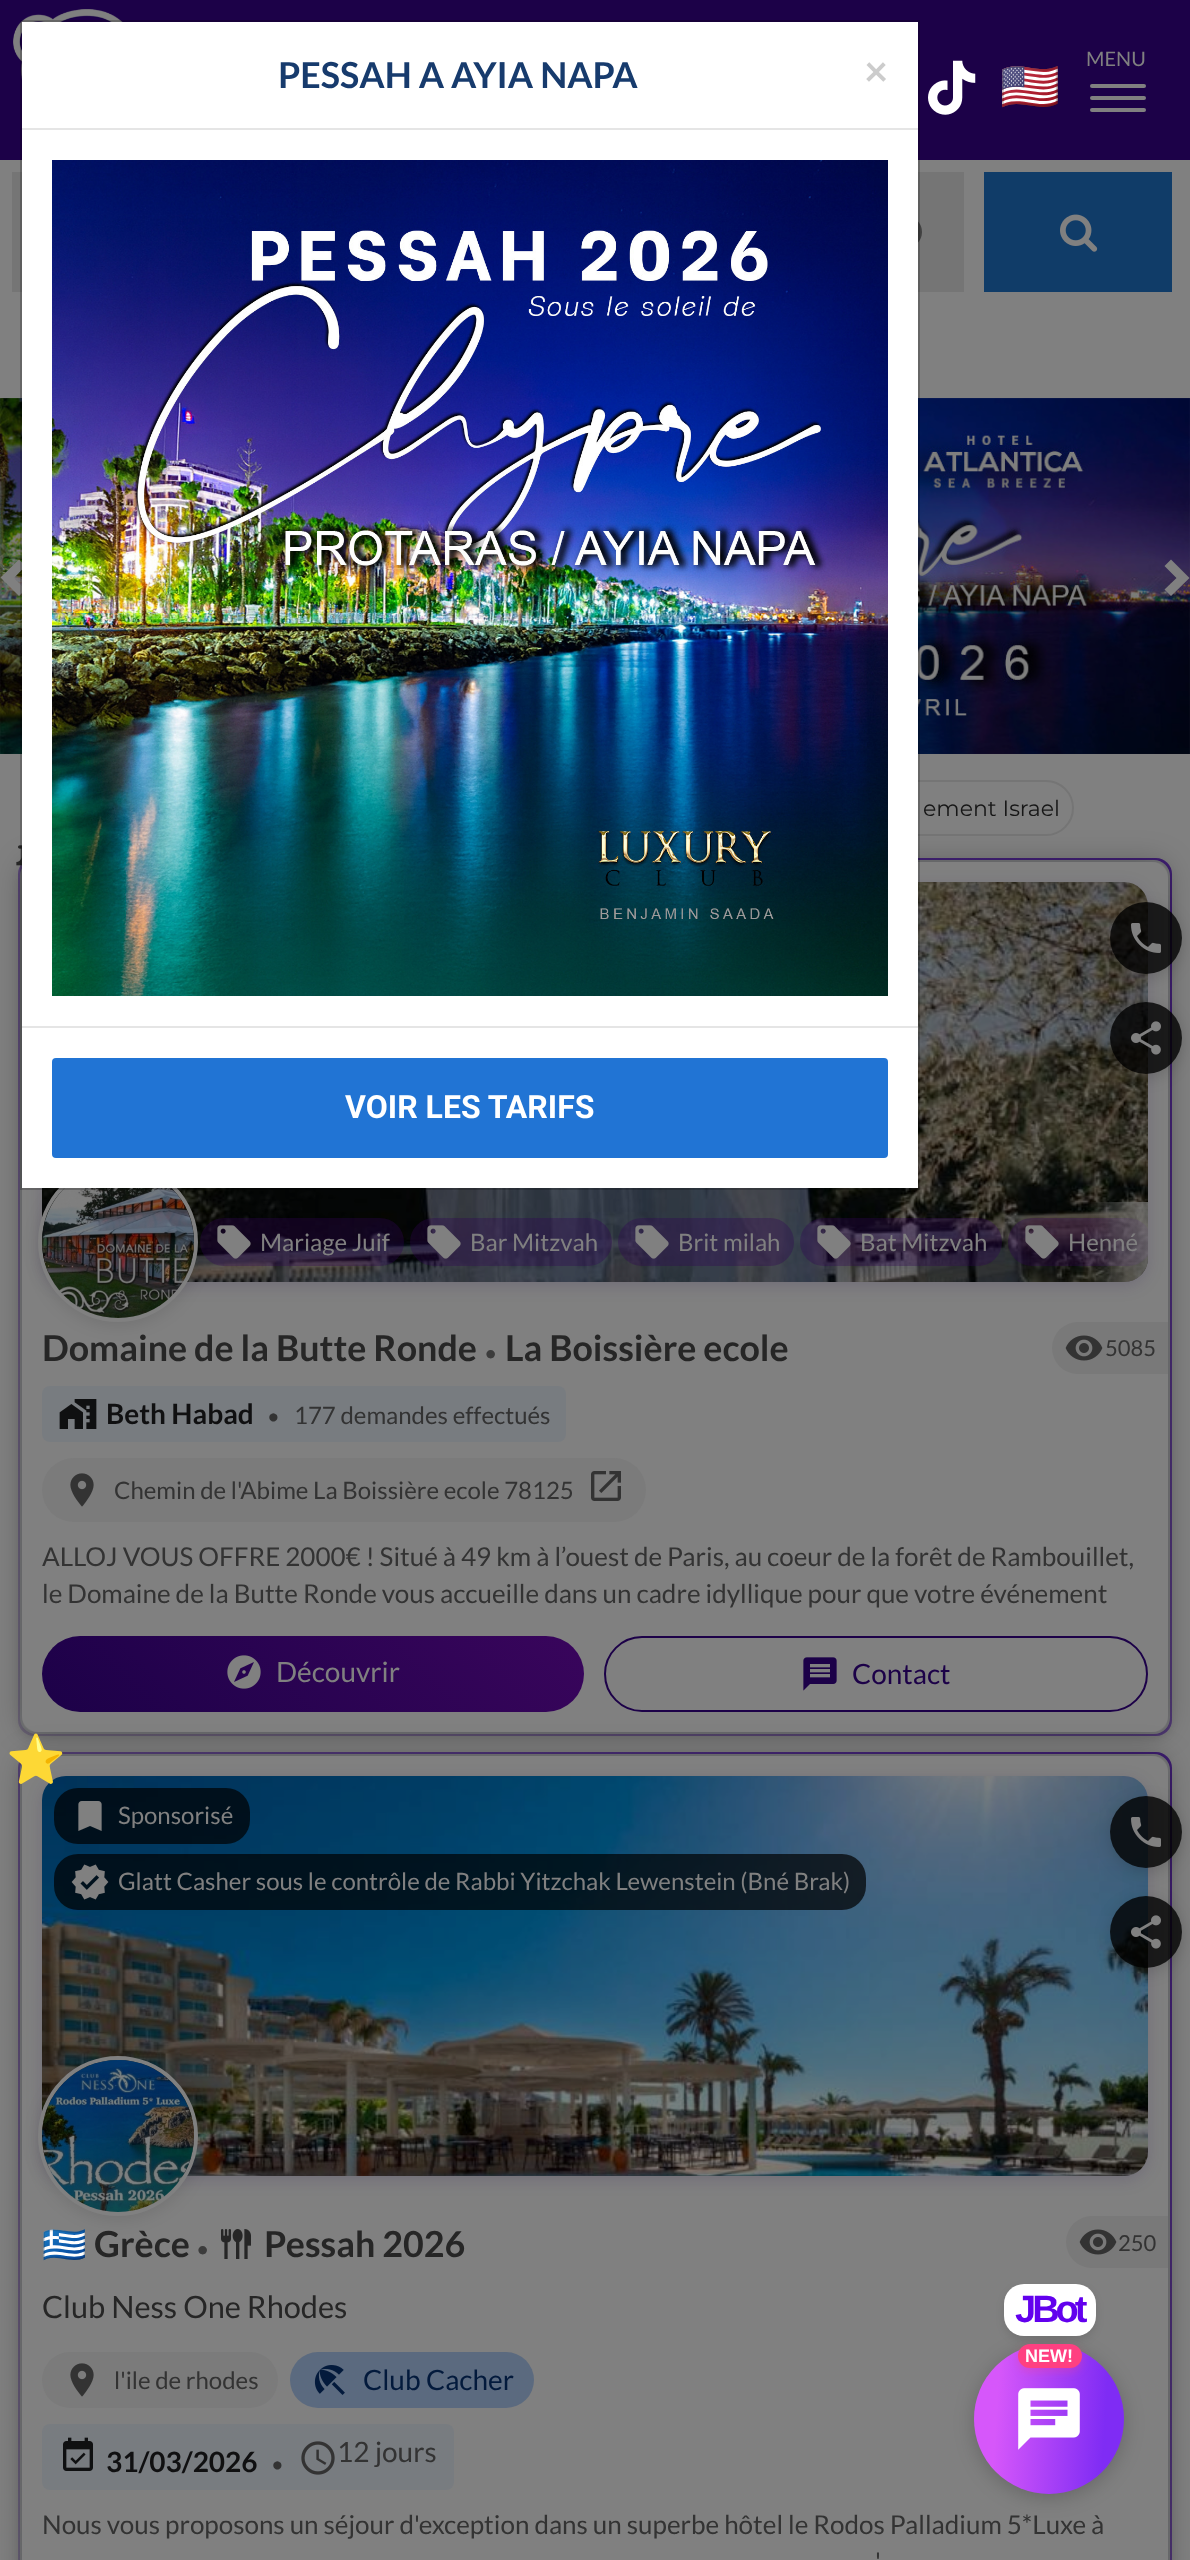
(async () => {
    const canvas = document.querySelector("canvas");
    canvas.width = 1190;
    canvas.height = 2560;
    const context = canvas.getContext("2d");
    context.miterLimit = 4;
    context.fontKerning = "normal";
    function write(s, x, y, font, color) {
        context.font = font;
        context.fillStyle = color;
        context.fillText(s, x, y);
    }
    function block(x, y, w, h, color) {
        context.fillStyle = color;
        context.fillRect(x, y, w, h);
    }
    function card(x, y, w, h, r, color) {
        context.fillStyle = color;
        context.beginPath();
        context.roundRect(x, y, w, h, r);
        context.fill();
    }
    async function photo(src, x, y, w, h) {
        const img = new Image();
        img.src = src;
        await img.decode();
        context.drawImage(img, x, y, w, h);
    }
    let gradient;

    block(0, 0, 1190, 2560, "rgb(128, 128, 128)");
    block(0, 0, 1190, 160, "rgb(28, 1, 72)");
    await photo("media/3.png", 13, 9, 110, 71);
    block(12, 172, 952, 120, "rgb(117, 117, 117)");
    await photo("media/6.png", 0, 398, 1190, 356);
    context.fillStyle = "rgb(128, 128, 128)";
    context.beginPath();
    context.moveTo(25.5, 566);
    context.lineTo(14, 578);
    context.lineTo(25.5, 589.5);
    context.lineTo(19, 596);
    context.lineTo(0.5, 577.5);
    context.lineTo(19, 559.5);
    context.closePath();
    context.fill();
    context.beginPath();
    context.roundRect(763, 781, 310, 54, 27);
    context.strokeStyle = "rgb(117, 117, 117)";
    context.lineWidth = 2;
    context.stroke();
    gradient = context.createLinearGradient(953, 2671, 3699, -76);
    gradient.addColorStop(0, "rgb(111, 104, 122)");
    gradient.addColorStop(0.33, "rgb(68, 35, 120)");
    gradient.addColorStop(0.67, "rgb(28, 1, 72)");
    gradient.addColorStop(1, "rgb(128, 128, 128)");
    context.fillStyle = gradient;
    context.beginPath();
    context.roundRect(18, 858, 1154, 878, 16);
    context.fill();
    context.fillStyle = "rgba(0, 0, 0, 0.1)";
    context.filter = "blur(4px)";
    context.beginPath();
    context.roundRect(20, 864, 1150, 874, 16);
    context.fill();
    context.filter = "none";
    context.fillStyle = "rgb(128, 128, 128)";
    context.beginPath();
    context.roundRect(21, 861, 1148, 872, 15);
    context.fill();
    context.strokeStyle = "rgb(117, 118, 120)";
    context.stroke();
    gradient = context.createLinearGradient(934, 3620, 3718, 836);
    gradient.addColorStop(0, "rgb(111, 104, 122)");
    gradient.addColorStop(0.33, "rgb(68, 35, 120)");
    gradient.addColorStop(0.67, "rgb(28, 1, 72)");
    gradient.addColorStop(1, "rgb(128, 128, 128)");
    context.fillStyle = gradient;
    context.beginPath();
    context.roundRect(18, 1752, 1154, 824, 16);
    context.fill();
    context.fillStyle = "rgba(0, 0, 0, 0.25)";
    context.filter = "blur(15px)";
    context.beginPath();
    context.roundRect(22, 862, 1146, 870, 16);
    context.fill();
    context.filter = "none";
    card(22, 862, 1146, 870, 16, "rgb(128, 128, 128)");
    context.fillStyle = "rgba(28, 1, 72, 0.15)";
    context.filter = "blur(8px)";
    context.beginPath();
    context.roundRect(42, 886, 1106, 400, 24);
    context.fill();
    context.filter = "none";
    await photo("media/11.png", 42, 882, 1106, 400);
    context.fillStyle = "rgba(0, 0, 0, 0.1)";
    context.filter = "blur(8px)";
    context.beginPath();
    context.roundRect(38, 1166, 160, 160, 80);
    context.fill();
    context.filter = "none";
    context.beginPath();
    context.arc(118, 1242, 78, 0, Math.PI * 2);
    context.strokeStyle = "rgb(128, 128, 128)";
    context.lineWidth = 4;
    context.stroke();
    block(22, 22, 896, 1166, "rgb(255, 255, 255)");
    await photo("media/4.png", 918, 221, 4, 22);
    await photo("media/7.png", 16, 845, 6, 21);
    await photo("media/10.png", 42, 1188, 152, 130);
    context.strokeStyle = "rgba(0, 0, 0, 0.2)";
    context.lineWidth = 2;
    context.strokeRect(21, 21, 898, 1168);
    block(22, 128, 896, 2, "rgb(229, 229, 229)");
    write("PESSAH A AYIA NAPA", 278, 88, "bold 35.8px Lato", "rgb(23, 59, 109)");
    write("×", 864, 86, "bold 42px Lato", "rgb(204, 204, 204)");
    await photo("media/1.png", 52, 160, 836, 836);
    block(22, 1026, 896, 2, "rgb(229, 229, 229)");
    card(52, 1058, 836, 100, 4, "rgb(33, 116, 212)");
    write("VOIR LES TARIFS", 345, 1118, "bold 32px Roboto", "rgb(255, 255, 255)");
    await photo("media/2.png", 928, 60, 48, 55);
    write("🇺🇸", 1000, 103, "48px Noto Color Emoji", "rgb(255, 255, 255)");
    write("MENU", 1086, 66, "20px Lato", "rgb(128, 128, 128)");
    card(1090, 84, 56, 4, 2, "rgb(128, 128, 128)");
    card(1090, 96, 56, 4, 2, "rgb(128, 128, 128)");
    card(1090, 108, 56, 4, 2, "rgb(128, 128, 128)");
    block(984, 172, 188, 120, "rgb(16, 60, 104)");
    await photo("media/5.png", 1060, 214, 38, 38);
    context.fillStyle = "rgb(128, 128, 128)";
    context.beginPath();
    context.moveTo(1189.5, 578);
    context.lineTo(1171, 596);
    context.lineTo(1164.5, 589.5);
    context.lineTo(1176.5, 578);
    context.lineTo(1164.5, 566);
    context.lineTo(1171, 559.5);
    context.closePath();
    context.fill();
    write("ement Israel", 923, 816, "22px Montserrat", "rgb(22, 22, 22)");
    context.save();
    context.beginPath();
    context.moveTo(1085, 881);
    context.lineTo(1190, 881);
    context.lineTo(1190, 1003);
    context.lineTo(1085, 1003);
    context.closePath();
    context.moveTo(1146, 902);
    context.bezierCurveTo(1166, 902, 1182, 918, 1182, 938);
    context.bezierCurveTo(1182, 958, 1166, 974, 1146, 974);
    context.bezierCurveTo(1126, 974, 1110, 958, 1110, 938);
    context.bezierCurveTo(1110, 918, 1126, 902, 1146, 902);
    context.closePath();
    context.clip("evenodd");
    context.fillStyle = "rgba(0, 0, 0, 0.15)";
    context.filter = "blur(8px)";
    context.beginPath();
    context.roundRect(1110, 906, 72, 72, 36);
    context.fill();
    context.filter = "none";
    context.restore();
    context.fillStyle = "rgba(0, 0, 0, 0.8)";
    context.beginPath();
    context.arc(1146, 938, 36, 0, Math.PI * 2);
    context.fill();
    await photo("media/8.png", 1131, 923, 30, 30);
    context.save();
    context.beginPath();
    context.moveTo(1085, 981);
    context.lineTo(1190, 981);
    context.lineTo(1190, 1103);
    context.lineTo(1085, 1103);
    context.closePath();
    context.moveTo(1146, 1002);
    context.bezierCurveTo(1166, 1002, 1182, 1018, 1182, 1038);
    context.bezierCurveTo(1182, 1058, 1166, 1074, 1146, 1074);
    context.bezierCurveTo(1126, 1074, 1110, 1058, 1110, 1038);
    context.bezierCurveTo(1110, 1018, 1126, 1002, 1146, 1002);
    context.closePath();
    context.clip("evenodd");
    context.fillStyle = "rgba(0, 0, 0, 0.15)";
    context.filter = "blur(8px)";
    context.beginPath();
    context.roundRect(1110, 1006, 72, 72, 36);
    context.fill();
    context.filter = "none";
    context.restore();
    context.beginPath();
    context.arc(1146, 1038, 36, 0, Math.PI * 2);
    context.fill();
    await photo("media/9.png", 1131, 1021, 30, 34);
    context.save();
    context.beginPath();
    context.roundRect(42, 882, 1106, 400, 24);
    context.clip();
    card(1008, 1218, 144, 48, 24, "rgba(48, 3, 86, 0.33)");
    context.restore();
    write("Henné", 1068, 1251, "24px Lato", "rgb(128, 128, 128)");
    gradient = context.createLinearGradient(1088, 1242, 1168, 1242);
    gradient.addColorStop(0, "rgba(128, 128, 128, 0)");
    gradient.addColorStop(1, "rgba(128, 128, 128, 0.9)");
    context.fillStyle = gradient;
    context.beginPath();
    context.roundRect(1088, 1202, 60, 80, [0, 0, 24, 0]);
    context.fill();
    card(200, 1218, 204, 48, 24, "rgba(48, 3, 86, 0.33)");
    await photo("media/12.png", 217, 1225, 34, 34);
    write("Mariage Juif", 260, 1251, "24px Lato", "rgb(128, 128, 128)");
    card(410, 1218, 202, 48, 24, "rgba(48, 3, 86, 0.33)");
    await photo("media/13.png", 427, 1225, 34, 34);
    write("Bar Mitzvah", 470, 1251, "24px Lato", "rgb(128, 128, 128)");
    card(618, 1218, 176, 48, 24, "rgba(48, 3, 86, 0.33)");
    await photo("media/14.png", 635, 1225, 34, 34);
    write("Brit milah", 678, 1251, "24px Lato", "rgb(128, 128, 128)");
    card(800, 1218, 202, 48, 24, "rgba(48, 3, 86, 0.33)");
    await photo("media/15.png", 817, 1225, 34, 34);
    write("Bat Mitzvah", 860, 1251, "24px Lato", "rgb(128, 128, 128)");
    await photo("media/16.png", 1025, 1225, 34, 34);
    write("Domaine de la Butte Ronde", 42, 1361, "bold 35.8px Lato", "rgb(38, 38, 38)");
    write("•", 484, 1361, "23px Lato", "rgb(60, 60, 60)");
    write("La Boissière ecole", 505, 1361, "bold 35.8px Lato", "rgb(38, 38, 38)");
    context.fillStyle = "rgb(121, 121, 121)";
    context.beginPath();
    context.roundRect(1052, 1322, 116, 52, [26, 0, 0, 26]);
    context.fill();
    await photo("media/17.png", 1065, 1335, 38, 26);
    write("5085", 1105, 1356, "22px Lato", "rgb(51, 51, 51)");
    card(42, 1386, 524, 56, 8, "rgb(120, 124, 128)");
    await photo("media/18.png", 59, 1399, 38, 30);
    write("Beth Habad", 106, 1424, "bold 28px Lato", "rgb(16, 16, 17)");
    write("•", 267, 1424, "22px Lato", "rgb(51, 51, 51)");
    write("177 demandes effectués", 294, 1424, "24px Lato", "rgb(51, 51, 51)");
    card(42, 1458, 604, 64, 32, "rgb(123, 123, 123)");
    await photo("media/19.png", 70, 1473, 24, 34);
    write("Chemin de l'Abime La Boissière ecole 78125", 114, 1499, "24px Lato", "rgb(51, 51, 51)");
    await photo("media/20.png", 591, 1471, 30, 30);
    write("ALLOJ VOUS OFFRE 2000€ ! Situé à 49 km à l’ouest de Paris, au coeur de la forêt de Rambouillet,", 42, 1566, "26px Lato", "rgb(51, 51, 51)");
    write("le Domaine de la Butte Ronde vous accueille dans un cadre idyllique pour que votre événement", 42, 1603, "26px Lato", "rgb(51, 51, 51)");
    gradient = context.createLinearGradient(159, 1829, 468, 1520);
    gradient.addColorStop(0, "rgb(28, 1, 72)");
    gradient.addColorStop(1, "rgb(57, 5, 92)");
    context.fillStyle = gradient;
    context.beginPath();
    context.roundRect(42, 1636, 542, 76, 38);
    context.fill();
    await photo("media/21.png", 227, 1655, 34, 34);
    write("Découvrir", 276, 1682, "28px Lato", "rgb(128, 128, 128)");
    context.beginPath();
    context.roundRect(605, 1637, 542, 74, 37);
    context.strokeStyle = "rgb(28, 1, 72)";
    context.stroke();
    await photo("media/22.png", 803, 1657, 34, 34);
    write("Contact", 852, 1684, "28px Lato", "rgb(28, 1, 72)");
    context.fillStyle = "rgba(0, 0, 0, 0.1)";
    context.filter = "blur(4px)";
    context.beginPath();
    context.roundRect(20, 1758, 1150, 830, 16);
    context.fill();
    context.filter = "none";
    context.fillStyle = "rgb(128, 128, 128)";
    context.beginPath();
    context.roundRect(21, 1755, 1148, 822, 15);
    context.fill();
    context.strokeStyle = "rgb(117, 118, 120)";
    context.stroke();
    context.fillStyle = "rgba(0, 0, 0, 0.25)";
    context.filter = "blur(15px)";
    context.beginPath();
    context.roundRect(22, 1756, 1146, 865, 16);
    context.fill();
    context.filter = "none";
    card(22, 1756, 1146, 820, 16, "rgb(128, 128, 128)");
    context.fillStyle = "rgba(28, 1, 72, 0.15)";
    context.filter = "blur(8px)";
    context.beginPath();
    context.roundRect(42, 1780, 1106, 400, 24);
    context.fill();
    context.filter = "none";
    await photo("media/23.png", 42, 1776, 1106, 400);
    write("⭐", 6, 1776, "48px Noto Color Emoji", "rgb(16, 16, 17)");
    card(54, 1788, 196, 56, 24, "rgba(0, 0, 0, 0.7)");
    await photo("media/24.png", 78, 1801, 24, 30);
    write("Sponsorisé", 118, 1824, "24px Lato", "rgb(128, 128, 128)");
    card(54, 1854, 812, 56, 24, "rgba(0, 0, 0, 0.7)");
    await photo("media/25.png", 71, 1864, 38, 36);
    write("Glatt Casher sous le contrôle de Rabbi Yitzchak Lewenstein (Bné Brak)", 118, 1890, "24px Lato", "rgb(128, 128, 128)");
    context.save();
    context.beginPath();
    context.moveTo(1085, 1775);
    context.lineTo(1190, 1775);
    context.lineTo(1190, 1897);
    context.lineTo(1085, 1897);
    context.closePath();
    context.moveTo(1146, 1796);
    context.bezierCurveTo(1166, 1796, 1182, 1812, 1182, 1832);
    context.bezierCurveTo(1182, 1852, 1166, 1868, 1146, 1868);
    context.bezierCurveTo(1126, 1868, 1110, 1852, 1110, 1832);
    context.bezierCurveTo(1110, 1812, 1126, 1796, 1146, 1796);
    context.closePath();
    context.clip("evenodd");
    context.fillStyle = "rgba(0, 0, 0, 0.15)";
    context.filter = "blur(8px)";
    context.beginPath();
    context.roundRect(1110, 1800, 72, 72, 36);
    context.fill();
    context.filter = "none";
    context.restore();
    context.fillStyle = "rgba(0, 0, 0, 0.8)";
    context.beginPath();
    context.arc(1146, 1832, 36, 0, Math.PI * 2);
    context.fill();
    await photo("media/26.png", 1131, 1817, 30, 30);
    context.save();
    context.beginPath();
    context.moveTo(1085, 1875);
    context.lineTo(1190, 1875);
    context.lineTo(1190, 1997);
    context.lineTo(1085, 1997);
    context.closePath();
    context.moveTo(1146, 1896);
    context.bezierCurveTo(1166, 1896, 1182, 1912, 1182, 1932);
    context.bezierCurveTo(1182, 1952, 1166, 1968, 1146, 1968);
    context.bezierCurveTo(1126, 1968, 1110, 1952, 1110, 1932);
    context.bezierCurveTo(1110, 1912, 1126, 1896, 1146, 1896);
    context.closePath();
    context.clip("evenodd");
    context.fillStyle = "rgba(0, 0, 0, 0.15)";
    context.filter = "blur(8px)";
    context.beginPath();
    context.roundRect(1110, 1900, 72, 72, 36);
    context.fill();
    context.filter = "none";
    context.restore();
    context.beginPath();
    context.arc(1146, 1932, 36, 0, Math.PI * 2);
    context.fill();
    await photo("media/27.png", 1131, 1915, 30, 34);
    context.fillStyle = "rgba(0, 0, 0, 0.1)";
    context.filter = "blur(8px)";
    context.beginPath();
    context.roundRect(38, 2060, 160, 160, 80);
    context.fill();
    context.filter = "none";
    context.beginPath();
    context.arc(118, 2136, 78, 0, Math.PI * 2);
    context.strokeStyle = "rgb(128, 128, 128)";
    context.lineWidth = 4;
    context.stroke();
    await photo("media/28.png", 42, 2060, 152, 152);
    write("🇬🇷", 42, 2257, "bold 35.8px Noto Color Emoji", "rgb(38, 38, 38)");
    write("Grèce", 94, 2257, "bold 35.8px Lato", "rgb(38, 38, 38)");
    write("•", 196, 2257, "23px Lato", "rgb(60, 60, 60)");
    await photo("media/29.png", 221, 2229, 30, 30);
    write("Pessah 2026", 264, 2257, "bold 35.8px Lato", "rgb(38, 38, 38)");
    context.fillStyle = "rgb(121, 121, 121)";
    context.beginPath();
    context.roundRect(1066, 2216, 102, 52, [26, 0, 0, 26]);
    context.fill();
    await photo("media/17.png", 1079, 2229, 38, 26);
    write("250", 1118, 2251, "22px Lato", "rgb(51, 51, 51)");
    write("Club Ness One Rhodes", 42, 2318, "30.75px Lato", "rgb(38, 38, 38)");
    card(42, 2352, 236, 56, 28, "rgb(123, 123, 123)");
    await photo("media/19.png", 70, 2363, 24, 34);
    write("l'ile de rhodes", 114, 2389, "24px Lato", "rgb(51, 51, 51)");
    card(290, 2352, 244, 56, 28, "rgb(91, 106, 127)");
    await photo("media/30.png", 314, 2365, 31, 30);
    write("Club Cacher", 363, 2390, "28px Lato", "rgb(3, 26, 60)");
    card(42, 2424, 412, 66, 8, "rgb(120, 124, 128)");
    await photo("media/31.png", 63, 2437, 30, 34);
    write("31/03/2026", 106, 2472, "bold 28px Lato", "rgb(16, 16, 17)");
    write("•", 271, 2472, "22px Lato", "rgb(51, 51, 51)");
    await photo("media/32.png", 301, 2441, 34, 34);
    write("12 jours", 337, 2462, "28px Lato", "rgb(51, 51, 51)");
    write("Nous vous proposons un séjour d'exception dans un superbe hôtel le Rodos Palladium 5*Luxe à", 42, 2534, "26px Lato", "rgb(51, 51, 51)");
    write("'", 875, 2571, "26px Lato", "rgb(51, 51, 51)");
    context.fillStyle = "rgba(0, 0, 0, 0.2)";
    context.filter = "blur(10px)";
    context.beginPath();
    context.roundRect(974, 2348, 150, 150, 75);
    context.fill();
    context.filter = "none";
    gradient = context.createLinearGradient(969, 2414, 1129, 2424);
    gradient.addColorStop(0.17, "rgb(214, 87, 250)");
    gradient.addColorStop(0.85, "rgb(127, 44, 244)");
    context.fillStyle = gradient;
    context.beginPath();
    context.arc(1049, 2419, 75, 0, Math.PI * 2);
    context.fill();
    context.fillStyle = "rgba(0, 0, 0, 0.1)";
    context.filter = "blur(4px)";
    context.beginPath();
    context.roundRect(1004, 2288, 92, 52, 20);
    context.fill();
    context.filter = "none";
    card(1004, 2284, 92, 52, 20, "rgb(255, 255, 255)");
    context.letterSpacing = "-4px";
    write("JBot", 1015, 2322, "bold 38px Liberation Sans", "rgb(98, 0, 238)");
    context.fillStyle = "rgba(255, 64, 129, 0.3)";
    context.filter = "blur(4px)";
    context.beginPath();
    context.roundRect(1018, 2348, 64, 24, 12);
    context.fill();
    context.filter = "none";
    card(1018, 2344, 64, 24, 12, "rgb(255, 64, 129)");
    context.letterSpacing = "0px";
    write("NEW!", 1025, 2362, "bold 18px Liberation Sans", "rgb(255, 255, 255)");
    await photo("media/33.png", 1018, 2388, 62, 62);
})();
